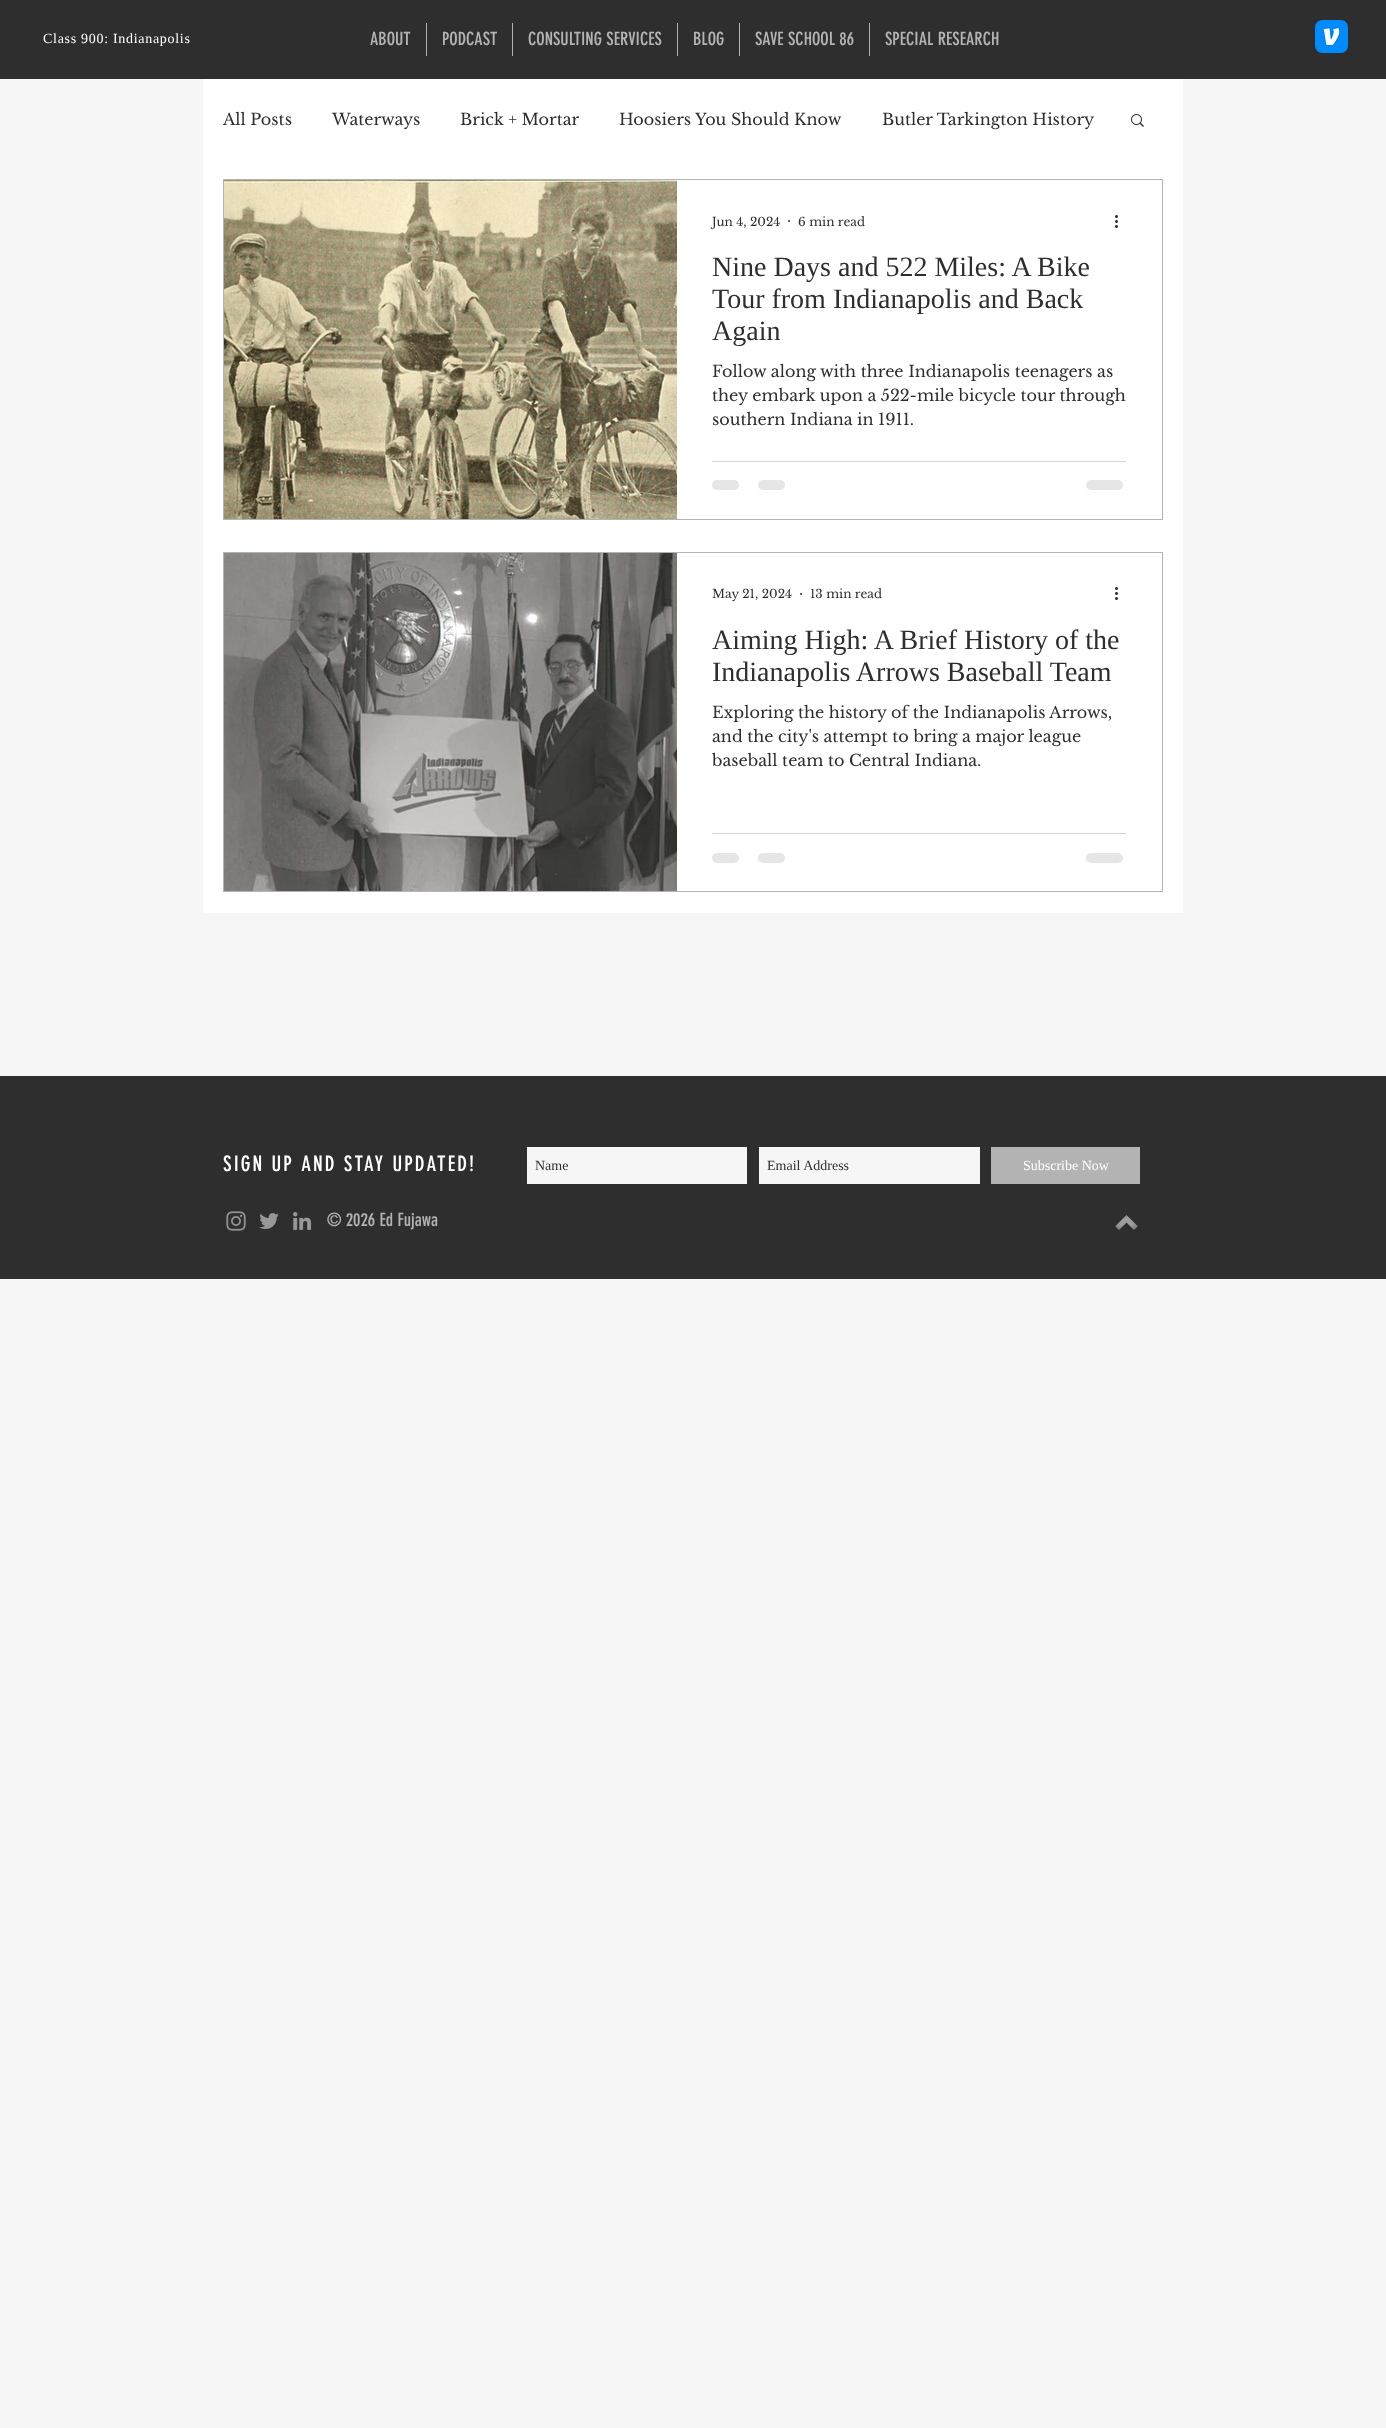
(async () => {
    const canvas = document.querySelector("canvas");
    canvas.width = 1386;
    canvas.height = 2428;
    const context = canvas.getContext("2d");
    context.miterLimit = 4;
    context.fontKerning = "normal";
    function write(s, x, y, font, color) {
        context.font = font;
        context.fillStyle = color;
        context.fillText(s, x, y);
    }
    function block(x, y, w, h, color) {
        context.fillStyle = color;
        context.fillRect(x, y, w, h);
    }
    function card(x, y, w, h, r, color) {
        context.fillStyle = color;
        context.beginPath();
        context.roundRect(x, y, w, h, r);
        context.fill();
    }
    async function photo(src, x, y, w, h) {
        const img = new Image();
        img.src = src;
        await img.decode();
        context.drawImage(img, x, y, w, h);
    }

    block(0, 0, 1386, 2428, "rgb(246, 246, 246)");
    block(0, 0, 1386, 79, "rgb(47, 46, 46)");
    context.letterSpacing = "0.7px";
    write("Class 900: Indianapolis", 43, 43, "14px Liberation Serif", "rgb(255, 255, 255)");
    context.letterSpacing = "0px";
    write("ABOUT", 370, 45, "18px 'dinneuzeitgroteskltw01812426'", "rgb(179, 179, 179)");
    block(426, 23, 1, 33, "rgb(179, 179, 179)");
    write("PODCAST", 442, 45, "18px 'dinneuzeitgroteskltw01812426'", "rgb(179, 179, 179)");
    block(512, 23, 1, 33, "rgb(179, 179, 179)");
    write("CONSULTING SERVICES", 528, 45, "18px 'dinneuzeitgroteskltw01812426'", "rgb(179, 179, 179)");
    block(677, 23, 1, 33, "rgb(179, 179, 179)");
    write("BLOG", 693, 45, "18px 'dinneuzeitgroteskltw01812426'", "rgb(179, 179, 179)");
    block(739, 23, 1, 33, "rgb(179, 179, 179)");
    write("SAVE SCHOOL 86", 755, 45, "18px 'dinneuzeitgroteskltw01812426'", "rgb(179, 179, 179)");
    block(869, 23, 1, 33, "rgb(179, 179, 179)");
    write("SPECIAL RESEARCH", 885, 45, "18px 'dinneuzeitgroteskltw01812426'", "rgb(179, 179, 179)");
    await photo("media/1.png", 1315, 20, 33, 33);
    block(203, 79, 980, 834, "rgb(255, 255, 255)");
    write("All Posts", 223, 125, "16px Libre Baskerville", "rgb(47, 46, 46)");
    write("Waterways", 332, 125, "16px Libre Baskerville", "rgb(47, 46, 46)");
    write("Brick + Mortar", 460, 125, "16px Libre Baskerville", "rgb(47, 46, 46)");
    write("Hoosiers You Should Know", 619, 125, "16px Libre Baskerville", "rgb(47, 46, 46)");
    write("Butler Tarkington History", 882, 125, "16px Libre Baskerville", "rgb(47, 46, 46)");
    await photo("media/2.png", 1131, 114, 13, 13);
    context.strokeStyle = "rgb(179, 179, 179)";
    context.strokeRect(223.5, 179.5, 939, 340);
    await photo("media/3.png", 224, 180, 453, 339);
    write("Jun 4, 2024", 712, 226, "12px Libre Baskerville", "rgb(47, 46, 46)");
    context.beginPath();
    context.arc(789, 221, 1, 0, Math.PI * 2);
    context.fill();
    write("6 min read", 798, 226, "12px Libre Baskerville", "rgb(47, 46, 46)");
    await photo("media/4.png", 1115, 215, 3, 13);
    write("Nine Days and 522 Miles: A Bike", 712, 276, "28px Liberation Serif", "rgb(47, 46, 46)");
    write("Tour from Indianapolis and Back", 712, 308, "28px Liberation Serif", "rgb(47, 46, 46)");
    write("Again", 712, 340, "28px Liberation Serif", "rgb(47, 46, 46)");
    write("Follow along with three Indianapolis teenagers as", 712, 377, "16px Libre Baskerville", "rgb(47, 46, 46)");
    write("they embark upon a 522-mile bicycle tour through", 712, 401, "16px Libre Baskerville", "rgb(47, 46, 46)");
    write("southern Indiana in 1911.", 712, 425, "16px Libre Baskerville", "rgb(47, 46, 46)");
    block(712, 461, 414, 1, "rgb(213, 213, 213)");
    card(712, 480, 27, 10, 5, "rgb(230, 230, 230)");
    card(758, 480, 27, 10, 5, "rgb(230, 230, 230)");
    card(1086, 480, 37, 10, 5, "rgb(230, 230, 230)");
    context.strokeRect(223.5, 552.5, 939, 339);
    await photo("media/5.png", 224, 553, 453, 338);
    write("May 21, 2024", 712, 598, "12px Libre Baskerville", "rgb(47, 46, 46)");
    context.beginPath();
    context.arc(801, 594, 1, 0, Math.PI * 2);
    context.fill();
    write("13 min read", 810, 598, "12px Libre Baskerville", "rgb(47, 46, 46)");
    await photo("media/4.png", 1115, 587, 3, 13);
    write("Aiming High: A Brief History of the", 712, 649, "28px Liberation Serif", "rgb(47, 46, 46)");
    write("Indianapolis Arrows Baseball Team", 712, 681, "28px Liberation Serif", "rgb(47, 46, 46)");
    write("Exploring the history of the Indianapolis Arrows,", 712, 718, "16px Libre Baskerville", "rgb(47, 46, 46)");
    write("and the city's attempt to bring a major league", 712, 742, "16px Libre Baskerville", "rgb(47, 46, 46)");
    write("baseball team to Central Indiana.", 712, 766, "16px Libre Baskerville", "rgb(47, 46, 46)");
    block(712, 833, 414, 1, "rgb(213, 213, 213)");
    card(712, 853, 27, 10, 5, "rgb(230, 230, 230)");
    card(758, 853, 27, 10, 5, "rgb(230, 230, 230)");
    card(1086, 853, 37, 10, 5, "rgb(230, 230, 230)");
    block(0, 1076, 1386, 203, "rgb(47, 46, 46)");
    context.letterSpacing = "2.1px";
    write("SIGN UP AND STAY UPDATED!", 223, 1171, "21px 'dinneuzeitgroteskltw01812426'", "rgb(255, 255, 255)");
    block(527, 1147, 220, 37, "rgb(246, 246, 246)");
    context.letterSpacing = "0px";
    write("Name", 535, 1170, "14px Liberation Serif", "rgb(47, 46, 46)");
    block(759, 1147, 221, 37, "rgb(246, 246, 246)");
    write("Email Address", 767, 1170, "14px Liberation Serif", "rgb(47, 46, 46)");
    block(991, 1147, 149, 37, "rgb(179, 179, 179)");
    write("Subscribe Now", 1023, 1170, "14px Liberation Serif", "rgb(255, 255, 255)");
    await photo("media/6.png", 226, 1211, 20, 20);
    await photo("media/7.png", 259, 1213, 20, 17);
    await photo("media/8.png", 292, 1212, 20, 19);
    write("© 2026 Ed Fujawa", 327, 1226, "18px 'dinneuzeitgroteskltw01812426'", "rgb(179, 179, 179)");
    await photo("media/9.png", 1115, 1215, 23, 15);
})();
